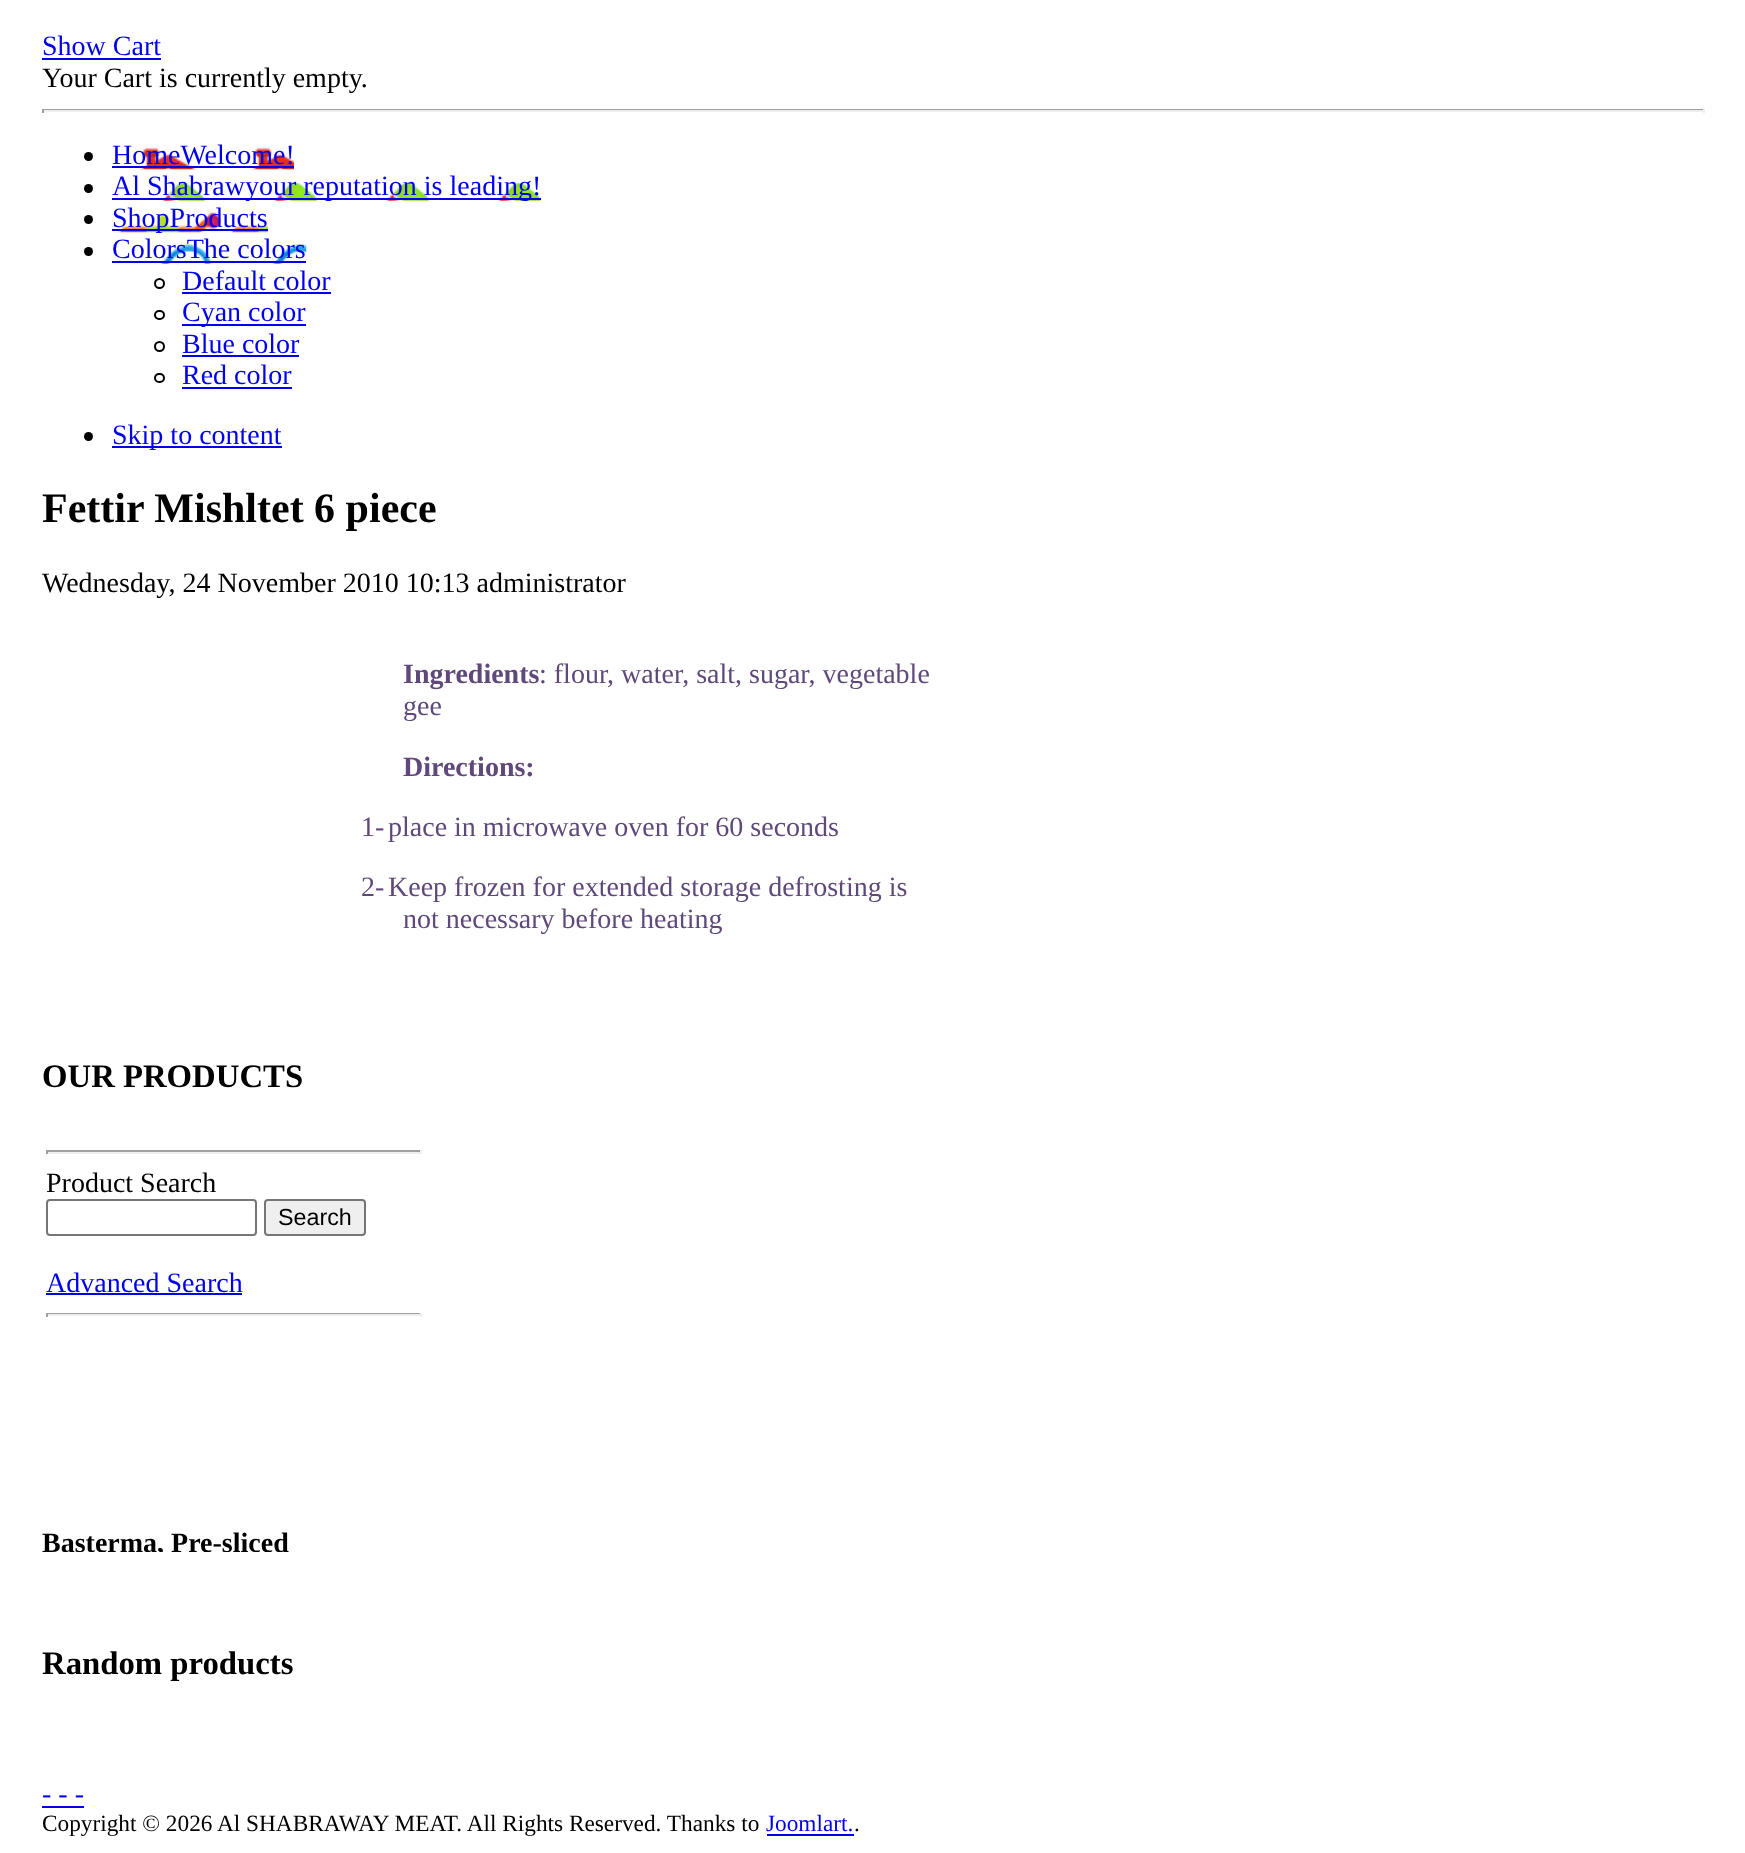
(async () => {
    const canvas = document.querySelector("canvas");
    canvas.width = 1745;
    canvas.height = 1853;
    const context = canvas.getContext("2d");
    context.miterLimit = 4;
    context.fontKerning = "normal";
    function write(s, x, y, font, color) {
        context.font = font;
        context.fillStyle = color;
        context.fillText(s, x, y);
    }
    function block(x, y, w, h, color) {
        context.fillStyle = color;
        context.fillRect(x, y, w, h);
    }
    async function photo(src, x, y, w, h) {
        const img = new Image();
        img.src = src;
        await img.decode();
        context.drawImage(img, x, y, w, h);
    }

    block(0, 0, 1745, 1853, "rgb(255, 255, 255)");
    write("Show Cart", 42, 55, "28px Liberation Serif", "rgb(0, 0, 238)");
    block(42, 58, 119, 2, "rgb(0, 0, 238)");
    write("Your Cart is currently empty.", 42, 87, "28px Liberation Serif", "rgb(0, 0, 0)");
    block(42, 109, 1663, 1, "rgb(159, 159, 159)");
    block(1703, 109, 2, 4, "rgb(238, 238, 238)");
    block(42, 110, 1663, 2, "rgb(238, 238, 238)");
    block(42, 109, 2, 4, "rgb(159, 159, 159)");
    await photo("media/1.png", 138, 147, 156, 23);
    write("HomeWelcome!", 112, 164, "28px Liberation Serif", "rgb(0, 0, 238)");
    block(112, 166, 182, 2, "rgb(0, 0, 238)");
    context.fillStyle = "rgb(0, 0, 0)";
    context.beginPath();
    context.arc(88.5, 156.5, 4.5, 0, Math.PI * 2);
    context.fill();
    await photo("media/2.png", 162, 182, 379, 19);
    block(112, 198, 429, 2, "rgb(0, 0, 238)");
    write("Al Shabrawyour reputation is leading!", 112, 195, "28px Liberation Serif", "rgb(0, 0, 238)");
    context.fillStyle = "rgb(0, 0, 0)";
    context.beginPath();
    context.arc(88.5, 188.5, 4.5, 0, Math.PI * 2);
    context.fill();
    await photo("media/3.png", 118, 212, 150, 21);
    block(112, 229, 156, 2, "rgb(0, 0, 238)");
    write("ShopProducts", 112, 227, "28px Liberation Serif", "rgb(0, 0, 238)");
    context.fillStyle = "rgb(0, 0, 0)";
    context.beginPath();
    context.arc(88.5, 219.5, 4.5, 0, Math.PI * 2);
    context.fill();
    await photo("media/4.png", 160, 244, 147, 20);
    write("ColorsThe colors", 112, 258, "28px Liberation Serif", "rgb(0, 0, 238)");
    block(112, 261, 194, 2, "rgb(0, 0, 238)");
    context.fillStyle = "rgb(0, 0, 0)";
    context.beginPath();
    context.arc(88.5, 251.5, 4.5, 0, Math.PI * 2);
    context.fill();
    context.beginPath();
    context.arc(159.5, 283.5, 4.5, 0, Math.PI * 2);
    context.strokeStyle = "rgb(0, 0, 0)";
    context.lineWidth = 2;
    context.stroke();
    write("Default color", 182, 290, "28px Liberation Serif", "rgb(0, 0, 238)");
    block(182, 292, 149, 2, "rgb(0, 0, 238)");
    context.beginPath();
    context.roundRect(155, 311, 9, 8, 4);
    context.stroke();
    block(182, 324, 124, 2, "rgb(0, 0, 238)");
    write("Cyan color", 182, 321, "28px Liberation Serif", "rgb(0, 0, 238)");
    context.beginPath();
    context.arc(159.5, 346.5, 4.5, 0, Math.PI * 2);
    context.stroke();
    write("Blue color", 182, 353, "28px Liberation Serif", "rgb(0, 0, 238)");
    block(182, 355, 117, 2, "rgb(0, 0, 238)");
    context.beginPath();
    context.roundRect(155, 374, 9, 8, 4);
    context.stroke();
    write("Red color", 182, 384, "28px Liberation Serif", "rgb(0, 0, 238)");
    block(182, 387, 110, 2, "rgb(0, 0, 238)");
    context.fillStyle = "rgb(0, 0, 0)";
    context.beginPath();
    context.arc(88.5, 436.5, 4.5, 0, Math.PI * 2);
    context.fill();
    block(112, 446, 170, 2, "rgb(0, 0, 238)");
    write("Skip to content", 112, 444, "28px Liberation Serif", "rgb(0, 0, 238)");
    write("Fettir Mishltet 6 piece", 42, 522, "bold 42px Liberation Serif", "rgb(0, 0, 0)");
    write("Wednesday, 24 November 2010 10:13 administrator", 42, 592, "28px Liberation Serif", "rgb(0, 0, 0)");
    write("Ingredients", 403, 683, "bold 28px Liberation Serif", "rgb(95, 73, 122)");
    write(": flour, water, salt, sugar, vegetable", 539, 683, "28px Liberation Serif", "rgb(95, 73, 122)");
    write("gee", 403, 715, "28px Liberation Serif", "rgb(95, 73, 122)");
    write("Directions:", 403, 776, "bold 28px Liberation Serif", "rgb(95, 73, 122)");
    write("1-", 361, 836, "28px Liberation Serif", "rgb(95, 73, 122)");
    write("place in microwave oven for 60 seconds", 388, 836, "28px Liberation Serif", "rgb(95, 73, 122)");
    write("2-", 361, 896, "28px Liberation Serif", "rgb(95, 73, 122)");
    write("Keep frozen for extended storage defrosting is", 388, 896, "28px Liberation Serif", "rgb(95, 73, 122)");
    write("not necessary before heating", 403, 928, "28px Liberation Serif", "rgb(95, 73, 122)");
    write("OUR PRODUCTS", 42, 1087, "bold 32.75px Liberation Serif", "rgb(0, 0, 0)");
    block(46, 1150, 376, 2, "rgb(159, 159, 159)");
    block(420, 1150, 2, 4, "rgb(238, 238, 238)");
    block(46, 1152, 376, 2, "rgb(238, 238, 238)");
    block(46, 1150, 2, 4, "rgb(159, 159, 159)");
    write("Product Search", 46, 1192, "28px Liberation Serif", "rgb(0, 0, 0)");
    context.beginPath();
    context.roundRect(47, 1200, 209, 35, 3);
    context.strokeStyle = "rgb(118, 118, 118)";
    context.stroke();
    context.fillStyle = "rgb(239, 239, 239)";
    context.beginPath();
    context.roundRect(265, 1200, 100, 35, 3);
    context.fill();
    context.stroke();
    write("Search", 278, 1225, "23.3px Liberation Sans", "rgb(0, 0, 0)");
    write("Advanced Search", 46, 1292, "28px Liberation Serif", "rgb(0, 0, 238)");
    block(46, 1293, 196, 2, "rgb(0, 0, 238)");
    block(46, 1313, 376, 1, "rgb(159, 159, 159)");
    block(420, 1313, 2, 4, "rgb(238, 238, 238)");
    block(46, 1314, 376, 2, "rgb(238, 238, 238)");
    block(46, 1313, 2, 4, "rgb(159, 159, 159)");
    context.save();
    context.beginPath();
    context.rect(42, 1334, 263, 218);
    context.clip();
    write("Basterma, Pre-sliced", 42, 1552, "bold 28px Liberation Serif", "rgb(0, 0, 0)");
    context.restore();
    write("Random products", 42, 1674, "bold 32.75px Liberation Serif", "rgb(0, 0, 0)");
    write("- - -", 42, 1803, "28px Liberation Serif", "rgb(0, 0, 238)");
    block(42, 1806, 42, 2, "rgb(0, 0, 238)");
    write("Copyright © 2026 Al SHABRAWAY MEAT. All Rights Reserved. Thanks to", 42, 1831, "23.3px Liberation Serif", "rgb(0, 0, 0)");
    write("Joomlart.", 766, 1831, "23.3px Liberation Serif", "rgb(0, 0, 238)");
    write(".", 854, 1831, "23.3px Liberation Serif", "rgb(0, 0, 0)");
    block(767, 1834, 87, 2, "rgb(0, 0, 238)");
})();
